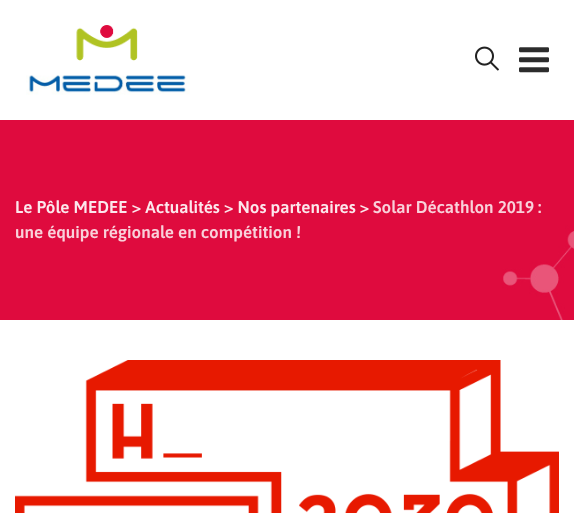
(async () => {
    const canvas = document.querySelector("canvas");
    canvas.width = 574;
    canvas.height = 513;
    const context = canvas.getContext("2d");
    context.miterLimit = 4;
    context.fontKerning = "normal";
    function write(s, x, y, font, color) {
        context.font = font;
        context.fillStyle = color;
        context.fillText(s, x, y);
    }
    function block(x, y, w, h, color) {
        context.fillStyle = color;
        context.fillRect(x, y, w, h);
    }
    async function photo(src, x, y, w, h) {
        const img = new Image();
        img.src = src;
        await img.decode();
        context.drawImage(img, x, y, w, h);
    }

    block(0, 0, 574, 513, "rgb(255, 255, 255)");
    await photo("media/1.png", 26, 25, 164, 70);
    await photo("media/2.png", 519, 47, 30, 26);
    await photo("media/3.png", 475, 46, 24, 25);
    await photo("media/4.png", 0, 120, 574, 200);
    write("Le Pôle MEDEE > Actualités > Nos partenaires >", 15, 213, "600 17px Asap", "rgb(252, 231, 236)");
    write("Solar Décathlon 2019 :", 373, 213, "600 17px Asap", "rgb(249, 209, 218)");
    write("une équipe régionale en compétition !", 15, 238, "600 17px Asap", "rgb(249, 209, 218)");
    await photo("media/5.png", 15, 360, 544, 153);
})();
